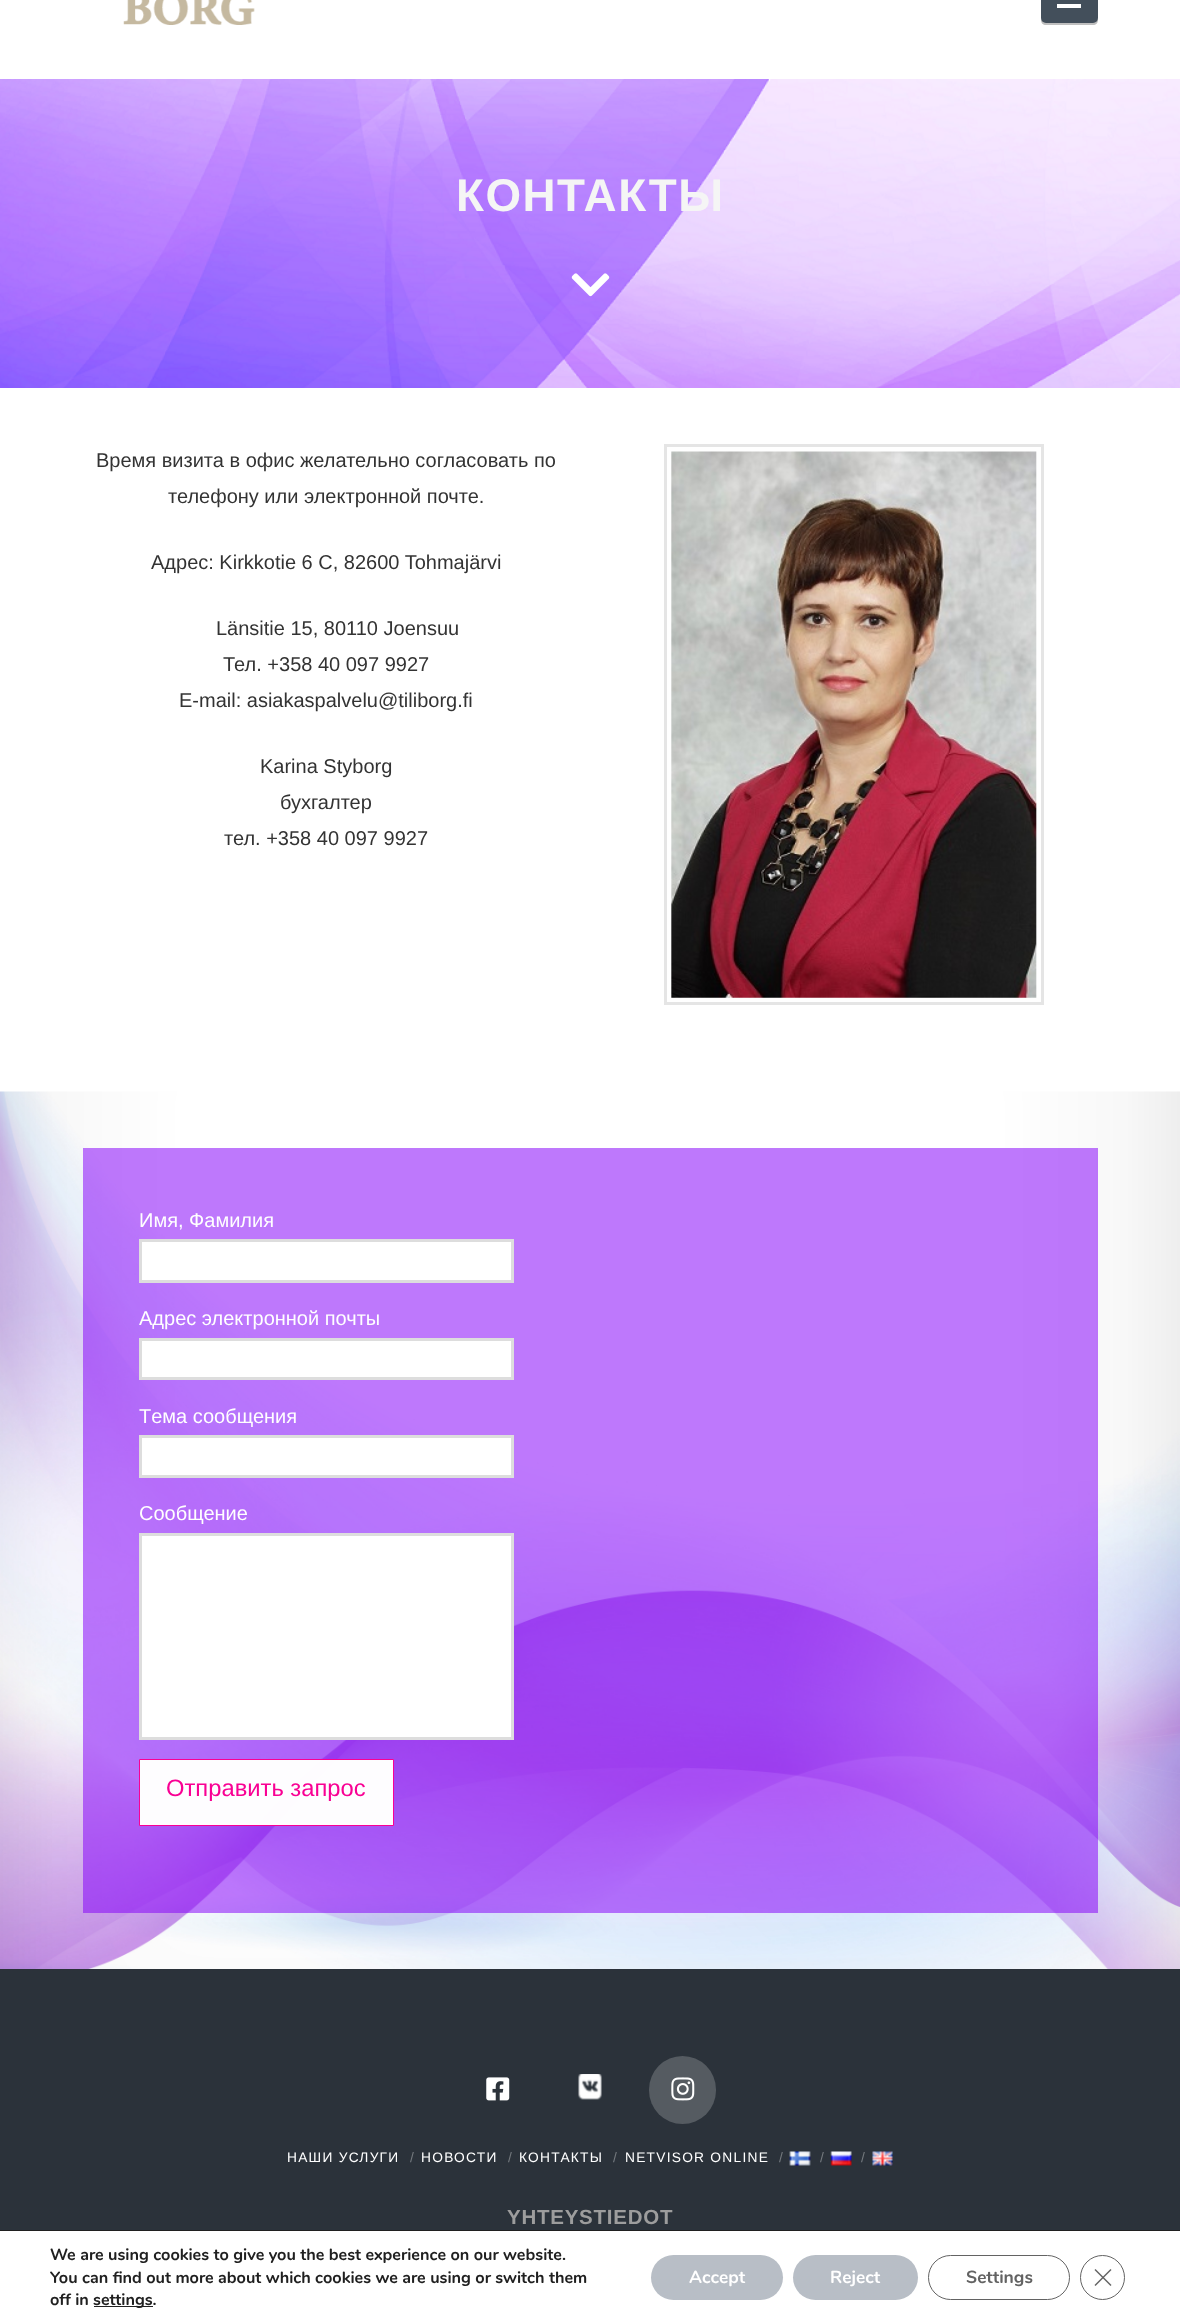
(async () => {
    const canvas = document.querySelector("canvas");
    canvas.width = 1180;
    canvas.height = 2323;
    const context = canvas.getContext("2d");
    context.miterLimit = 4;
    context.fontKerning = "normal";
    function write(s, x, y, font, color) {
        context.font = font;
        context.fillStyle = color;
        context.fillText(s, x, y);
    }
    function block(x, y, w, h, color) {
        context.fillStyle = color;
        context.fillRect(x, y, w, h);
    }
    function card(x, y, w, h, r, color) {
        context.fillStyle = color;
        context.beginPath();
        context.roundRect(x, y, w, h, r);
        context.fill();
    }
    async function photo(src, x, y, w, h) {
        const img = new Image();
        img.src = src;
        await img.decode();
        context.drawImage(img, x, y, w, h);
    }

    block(0, 0, 1180, 2323, "rgb(255, 255, 255)");
    await photo("media/1.png", 123, 0, 132, 25);
    context.fillStyle = "rgb(191, 191, 191)";
    context.beginPath();
    context.moveTo(1041, -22);
    context.lineTo(1041, 20);
    context.bezierCurveTo(1041, 23, 1043, 25, 1046, 25);
    context.lineTo(1093, 25);
    context.bezierCurveTo(1096, 25, 1098, 23, 1098, 20);
    context.lineTo(1098, -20);
    context.lineTo(1098, -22);
    context.lineTo(1098, 18);
    context.bezierCurveTo(1098, 20, 1095, 22, 1092, 22);
    context.lineTo(1046, 22);
    context.bezierCurveTo(1043, 22, 1041, 20, 1041, 18);
    context.closePath();
    context.fill();
    card(1041, -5, 57, 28, 5, "rgb(67, 79, 91)");
    block(1057, 4, 24, 4, "rgb(255, 255, 255)");
    await photo("media/2.png", 0, 79, 1180, 309);
    context.letterSpacing = "1.5px";
    write("КОНТАКТЫ", 456, 211, "bold 45.75px Liberation Sans", "rgb(245, 245, 245)");
    await photo("media/3.png", 571, 273, 39, 24);
    context.letterSpacing = "0px";
    write("Время визита в офис желательно согласовать по", 96, 467, "20px Liberation Sans", "rgb(51, 51, 51)");
    write("телефону или электронной почте.", 168, 503, "20px Liberation Sans", "rgb(51, 51, 51)");
    write("Адрес: Kirkkotie 6 C, 82600 Tohmajärvi", 151, 569, "20px Liberation Sans", "rgb(51, 51, 51)");
    write("Länsitie 15, 80110 Joensuu", 216, 635, "20px Liberation Sans", "rgb(51, 51, 51)");
    write("Тел. +358 40 097 9927", 223, 671, "20px Liberation Sans", "rgb(51, 51, 51)");
    write("E-mail: asiakaspalvelu@tiliborg.fi", 179, 707, "20px Liberation Sans", "rgb(51, 51, 51)");
    write("Karina Styborg", 260, 773, "20px Liberation Sans", "rgb(51, 51, 51)");
    write("бухгалтер", 280, 809, "20px Liberation Sans", "rgb(51, 51, 51)");
    write("тел. +358 40 097 9927", 224, 845, "20px Liberation Sans", "rgb(51, 51, 51)");
    context.strokeStyle = "rgb(229, 229, 229)";
    context.lineWidth = 3;
    context.strokeRect(665.5, 445.5, 377, 558);
    await photo("media/4.png", 671, 451, 366, 547);
    await photo("media/5.png", 0, 1091, 1180, 878);
    block(83, 1148, 1015, 765, "rgba(133, 0, 250, 0.53)");
    write("Имя, Фамилия", 139, 1227, "20px Liberation Sans", "rgb(255, 255, 255)");
    context.beginPath();
    context.rect(140.5, 1240.5, 372, 41);
    context.fill();
    context.strokeStyle = "rgb(221, 221, 221)";
    context.stroke();
    write("Адрес электронной почты", 139, 1325, "20px Liberation Sans", "rgb(255, 255, 255)");
    context.beginPath();
    context.rect(140.5, 1339.5, 372, 39);
    context.fill();
    context.stroke();
    write("Tема сообщения", 139, 1423, "20px Liberation Sans", "rgb(255, 255, 255)");
    context.beginPath();
    context.rect(140.5, 1436.5, 372, 40);
    context.fill();
    context.stroke();
    write("Сообщение", 139, 1520, "20px Liberation Sans", "rgb(255, 255, 255)");
    context.beginPath();
    context.rect(140.5, 1534.5, 372, 204);
    context.fill();
    context.stroke();
    context.fillStyle = "rgba(255, 255, 255, 0.99)";
    context.beginPath();
    context.rect(139.5, 1759.5, 254, 66);
    context.fill();
    context.strokeStyle = "rgb(249, 0, 148)";
    context.lineWidth = 1;
    context.stroke();
    write("Отправить запрос", 166, 1796, "23.75px Liberation Sans", "rgb(249, 0, 148)");
    block(0, 1969, 1180, 261, "rgb(43, 50, 58)");
    await photo("media/6.png", 486, 2077, 24, 24);
    await photo("media/7.png", 578, 2074, 24, 26);
    card(649, 2056, 67, 68, 33.5, "rgb(85, 91, 97)");
    await photo("media/8.png", 671, 2077, 24, 24);
    context.letterSpacing = "1.25px";
    write("НАШИ УСЛУГИ", 287, 2162, "13.75px Liberation Sans", "rgb(255, 255, 255)");
    context.letterSpacing = "0px";
    write("/", 410, 2162, "13.75px Liberation Sans", "rgb(117, 122, 127)");
    context.letterSpacing = "1.25px";
    write("НОВОСТИ", 421, 2162, "13.75px Liberation Sans", "rgb(255, 255, 255)");
    context.letterSpacing = "0px";
    write("/", 508, 2162, "13.75px Liberation Sans", "rgb(117, 122, 127)");
    context.letterSpacing = "1.25px";
    write("КОНТАКТЫ", 519, 2162, "13.75px Liberation Sans", "rgb(255, 255, 255)");
    context.letterSpacing = "0px";
    write("/", 613, 2162, "13.75px Liberation Sans", "rgb(117, 122, 127)");
    context.letterSpacing = "1.25px";
    write("NETVISOR ONLINE", 625, 2162, "13.75px Liberation Sans", "rgb(255, 255, 255)");
    context.letterSpacing = "0px";
    write("/", 779, 2162, "13.75px Liberation Sans", "rgb(117, 122, 127)");
    await photo("media/9.png", 789, 2151, 22, 15);
    write("/", 820, 2162, "13.75px Liberation Sans", "rgb(117, 122, 127)");
    await photo("media/10.png", 830, 2151, 22, 15);
    write("/", 861, 2162, "13.75px Liberation Sans", "rgb(117, 122, 127)");
    await photo("media/11.png", 872, 2151, 21, 15);
    context.letterSpacing = "0.75px";
    write("YHTEYSTIEDOT", 507, 2224, "bold 20.5px Liberation Sans", "rgb(157, 157, 157)");
    block(0, 2230, 1180, 1, "rgb(32, 32, 32)");
    context.letterSpacing = "0px";
    write("We are using cookies to give you the best experience on our website.", 50, 2260, "bold 16.25px Nunito", "rgb(32, 32, 32)");
    write("You can find out more about which cookies we are using or switch them", 50, 2283, "bold 16.25px Nunito", "rgb(32, 32, 32)");
    write("off in", 50, 2305, "bold 16.25px Nunito", "rgb(32, 32, 32)");
    block(94, 2306, 59, 1, "rgb(32, 32, 32)");
    write("settings.", 93, 2305, "bold 16.25px Nunito", "rgb(32, 32, 32)");
    card(651, 2255, 132, 45, 22.5, "rgb(184, 190, 198)");
    write("Accept", 689, 2283, "bold 17.5px Nunito", "rgb(255, 255, 255)");
    card(793, 2255, 125, 45, 22.5, "rgb(184, 190, 198)");
    write("Reject", 830, 2283, "bold 17.5px Nunito", "rgb(255, 255, 255)");
    context.beginPath();
    context.roundRect(928.5, 2255.5, 141, 44, 22);
    context.strokeStyle = "rgb(99, 99, 99)";
    context.stroke();
    write("Settings", 966, 2283, "bold 17.5px Nunito", "rgb(99, 99, 99)");
    context.beginPath();
    context.arc(1102.5, 2277.5, 22, 0, Math.PI * 2);
    context.strokeStyle = "rgb(98, 98, 98)";
    context.stroke();
    context.fillStyle = "rgb(98, 98, 98)";
    context.beginPath();
    context.moveTo(1110.5, 2269);
    context.lineTo(1111.5, 2270);
    context.lineTo(1095.5, 2286);
    context.lineTo(1094.5, 2285);
    context.closePath();
    context.fill();
    context.beginPath();
    context.moveTo(1094.5, 2270);
    context.lineTo(1095.5, 2269);
    context.lineTo(1111.5, 2285);
    context.lineTo(1110.5, 2286);
    context.closePath();
    context.fill();
})();
